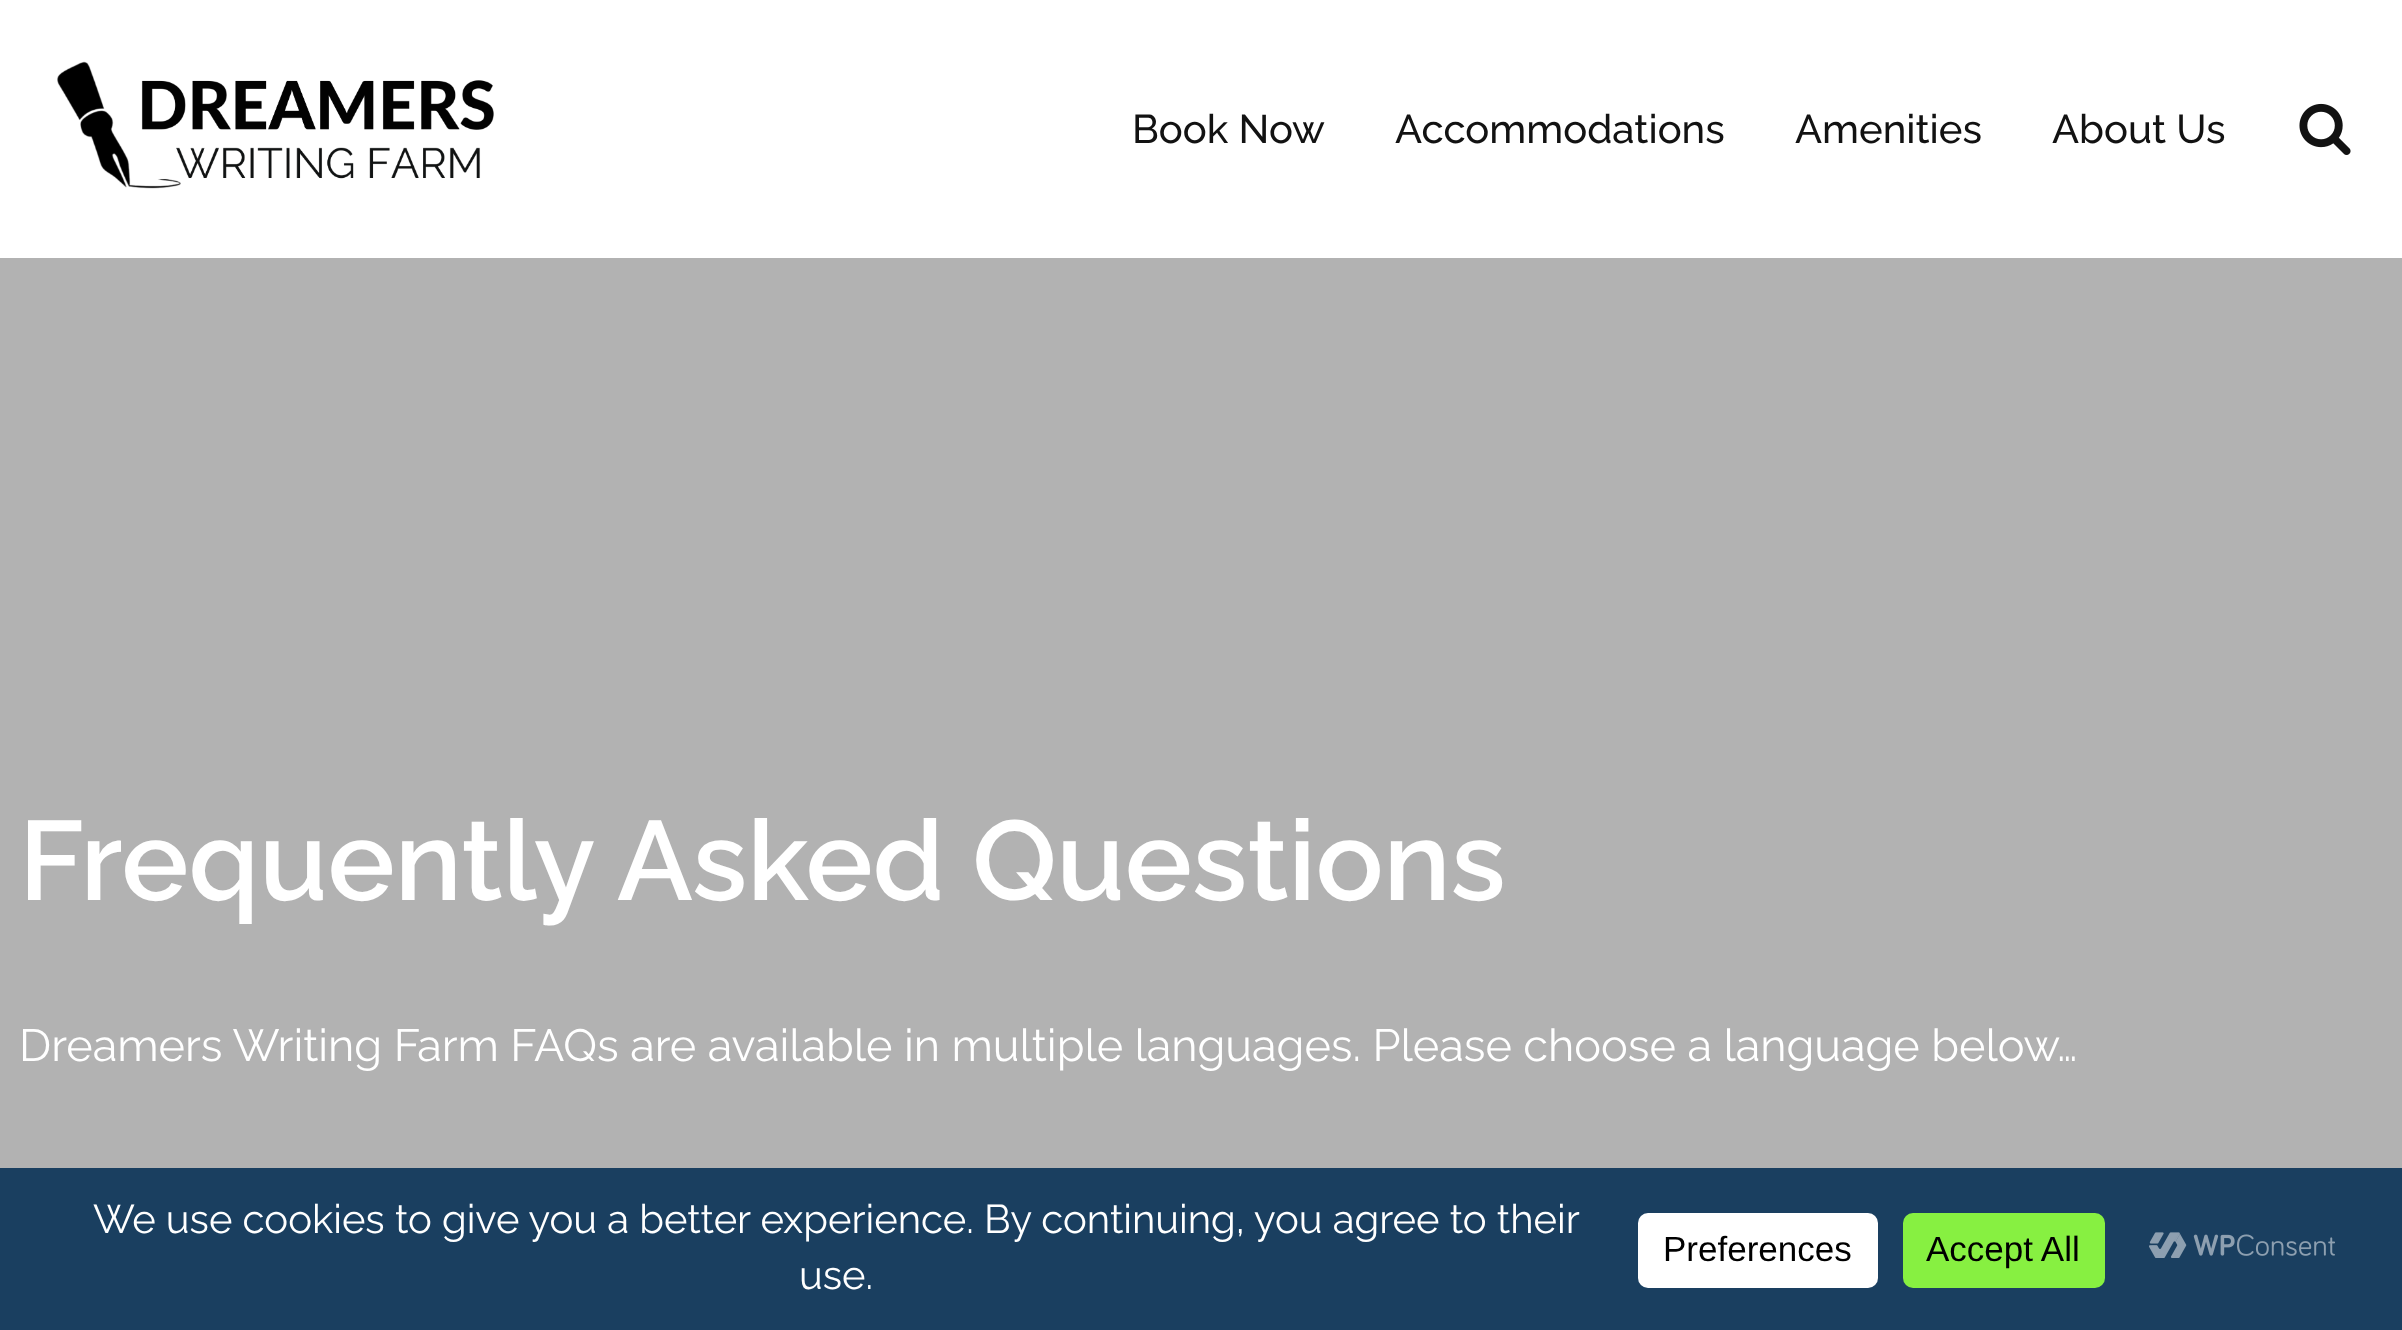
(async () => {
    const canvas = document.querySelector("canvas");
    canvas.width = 2402;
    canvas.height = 1330;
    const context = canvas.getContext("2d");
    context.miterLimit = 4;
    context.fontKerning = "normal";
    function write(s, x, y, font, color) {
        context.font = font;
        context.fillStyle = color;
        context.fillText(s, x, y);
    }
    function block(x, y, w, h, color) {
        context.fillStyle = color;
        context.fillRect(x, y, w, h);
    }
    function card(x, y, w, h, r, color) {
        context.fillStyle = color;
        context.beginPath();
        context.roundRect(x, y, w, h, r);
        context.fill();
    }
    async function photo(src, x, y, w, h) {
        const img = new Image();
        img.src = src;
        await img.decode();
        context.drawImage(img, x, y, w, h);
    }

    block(0, 0, 2402, 1330, "rgb(255, 255, 255)");
    await photo("media/1.png", 57, 61, 437, 128);
    write("Book Now", 1132, 143, "500 40px Raleway", "rgb(18, 18, 18)");
    write("Accommodations", 1395, 143, "500 40px Raleway", "rgb(18, 18, 18)");
    write("Amenities", 1795, 143, "500 40px Raleway", "rgb(18, 18, 18)");
    write("About Us", 2052, 143, "500 40px Raleway", "rgb(18, 18, 18)");
    await photo("media/2.png", 2299, 103, 52, 52);
    block(0, 258, 2402, 910, "rgba(0, 0, 0, 0.3)");
    write("Frequently Asked Questions", 19, 900, "600 112.5px Raleway", "rgb(255, 255, 255)");
    write("Dreamers Writing Farm FAQs are available in multiple languages. Please choose a language below…", 19, 1061, "45px Raleway", "rgb(255, 255, 255)");
    block(0, 1168, 2402, 162, "rgb(26, 63, 96)");
    write("We use cookies to give you a better experience. By continuing, you agree to their", 93, 1233, "40px Raleway", "rgb(255, 255, 255)");
    write("use.", 799, 1289, "40px Raleway", "rgb(255, 255, 255)");
    card(1638, 1213, 240, 75, 10, "rgb(255, 255, 255)");
    write("Preferences", 1663, 1261, "35px Liberation Sans", "rgb(0, 0, 0)");
    card(1903, 1213, 202, 75, 10, "rgb(135, 240, 65)");
    write("Accept All", 1926, 1261, "35px Liberation Sans", "rgb(0, 0, 0)");
    await photo("media/3.png", 2149, 1232, 186, 26);
})();
